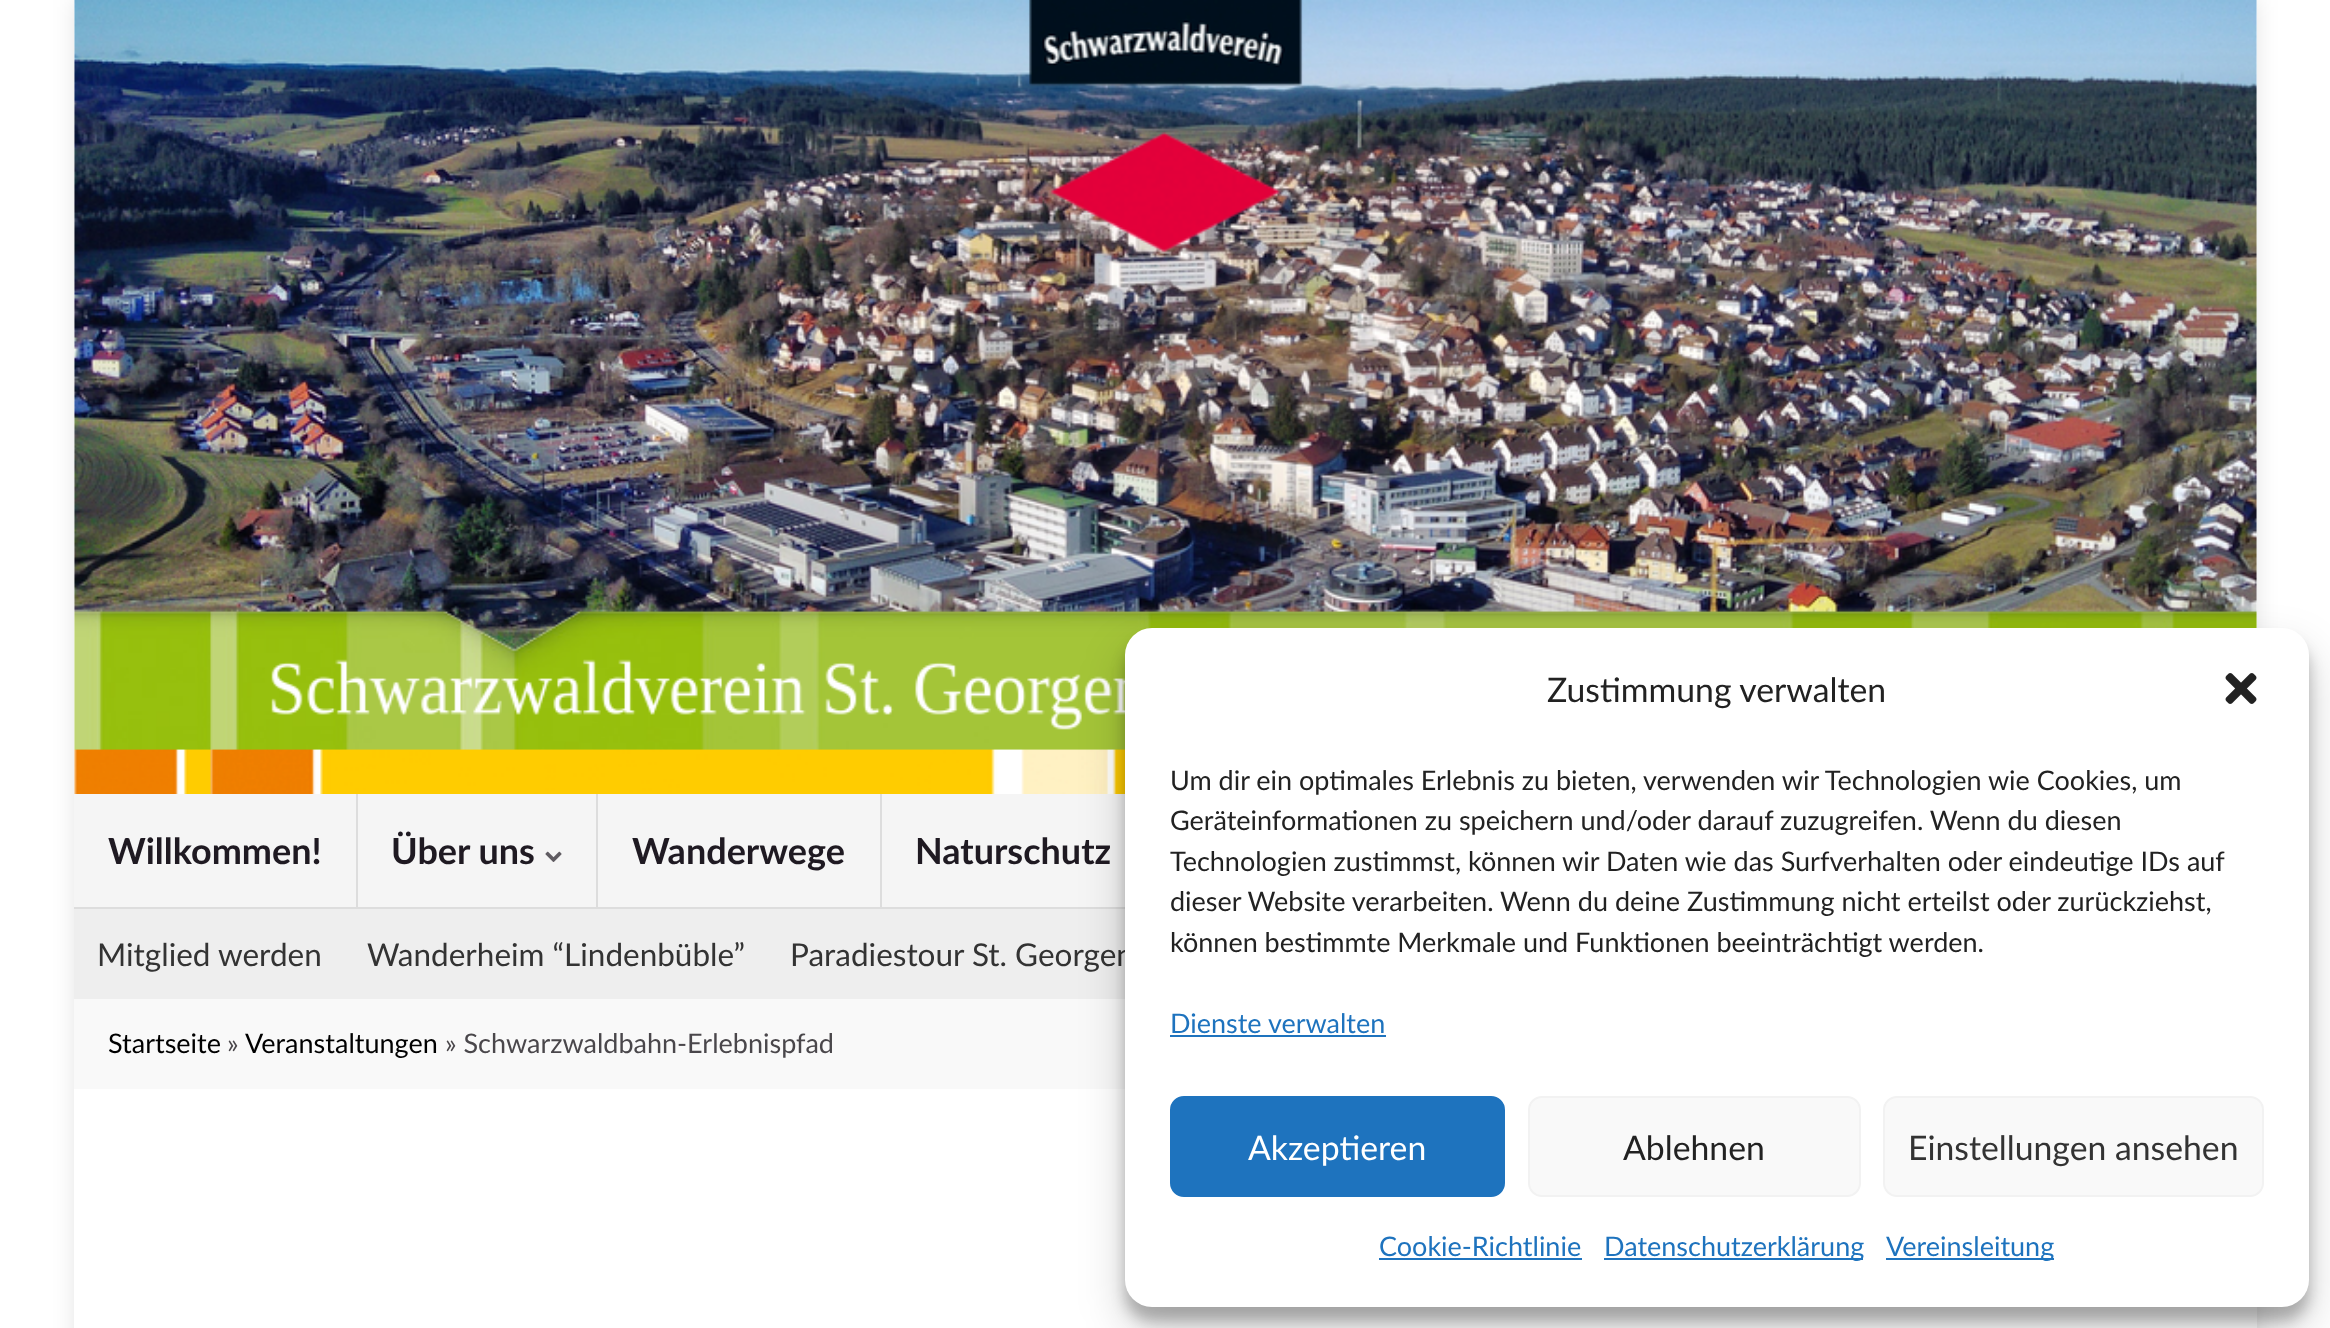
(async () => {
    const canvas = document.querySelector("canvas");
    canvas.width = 2330;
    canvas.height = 1328;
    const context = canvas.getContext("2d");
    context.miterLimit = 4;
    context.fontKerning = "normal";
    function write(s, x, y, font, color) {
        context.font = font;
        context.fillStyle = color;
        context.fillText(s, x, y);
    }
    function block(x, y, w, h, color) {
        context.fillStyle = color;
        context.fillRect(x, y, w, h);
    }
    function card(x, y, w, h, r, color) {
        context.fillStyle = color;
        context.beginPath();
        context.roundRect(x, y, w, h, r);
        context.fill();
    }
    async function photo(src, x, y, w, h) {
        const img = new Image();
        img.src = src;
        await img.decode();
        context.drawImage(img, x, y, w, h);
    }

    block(0, 0, 2330, 1328, "rgb(255, 255, 255)");
    context.fillStyle = "rgba(0, 0, 0, 0.1)";
    context.filter = "blur(11px)";
    context.beginPath();
    context.rect(74, 0, 2183, 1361);
    context.fill();
    context.filter = "none";
    block(74, 0, 2183, 794, "rgb(255, 255, 255)");
    await photo("media/1.png", 74, 0, 2183, 794);
    block(74, 794, 1051, 113, "rgb(245, 245, 245)");
    block(356, 794, 2, 113, "rgb(221, 221, 221)");
    write("Willkommen!", 108, 864, "bold 36px Lato", "rgb(31, 26, 34)");
    block(596, 794, 2, 113, "rgb(221, 221, 221)");
    write("Über uns", 391, 864, "bold 36px Lato", "rgb(31, 26, 34)");
    await photo("media/2.png", 545, 851, 17, 11);
    block(880, 794, 2, 113, "rgb(221, 221, 221)");
    write("Wanderwege", 632, 864, "bold 36px Lato", "rgb(31, 26, 34)");
    write("Naturschutz", 915, 864, "bold 36px Lato", "rgb(31, 26, 34)");
    block(74, 909, 1051, 90, "rgb(238, 238, 238)");
    block(74, 907, 1051, 2, "rgb(221, 221, 221)");
    write("Mitglied werden", 97, 966, "31.5px Lato", "rgb(51, 51, 51)");
    write("Wanderheim “Lindenbüble”", 367, 966, "31.5px Lato", "rgb(51, 51, 51)");
    write("Paradiestour St. Georgen", 790, 966, "31.5px Lato", "rgb(51, 51, 51)");
    block(74, 999, 1051, 90, "rgb(249, 249, 249)");
    write("Startseite", 108, 1053, "27px Lato", "rgb(0, 0, 0)");
    write("»", 227, 1053, "27px Lato", "rgb(74, 71, 75)");
    write("Veranstaltungen", 245, 1053, "27px Lato", "rgb(0, 0, 0)");
    write("» Schwarzwaldbahn-Erlebnispfad", 445, 1053, "27px Lato", "rgb(74, 71, 75)");
    block(74, 1089, 2183, 239, "rgb(255, 255, 255)");
    context.fillStyle = "rgba(0, 0, 0, 0.23)";
    context.filter = "blur(7px)";
    context.beginPath();
    context.roundRect(1125, 641, 1184, 680, 27);
    context.fill();
    context.filter = "none";
    context.fillStyle = "rgba(0, 0, 0, 0.19)";
    context.filter = "blur(22.5px)";
    context.beginPath();
    context.roundRect(1125, 650, 1184, 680, 27);
    context.fill();
    context.filter = "none";
    card(1125, 628, 1184, 679, 27, "rgb(255, 255, 255)");
    write("Zustimmung verwalten", 1547, 702, "33.75px Lato", "rgb(34, 34, 34)");
    await photo("media/3.png", 2225, 673, 32, 31);
    write("Um dir ein optimales Erlebnis zu bieten, verwenden wir Technologien wie Cookies, um", 1170, 790, "27px Lato", "rgb(34, 34, 34)");
    write("Geräteinformationen zu speichern und/oder darauf zuzugreifen. Wenn du diesen", 1170, 830, "27px Lato", "rgb(34, 34, 34)");
    write("Technologien zustimmst, können wir Daten wie das Surfverhalten oder eindeutige IDs auf", 1170, 871, "27px Lato", "rgb(34, 34, 34)");
    write("dieser Website verarbeiten. Wenn du deine Zustimmung nicht erteilst oder zurückziehst,", 1170, 911, "27px Lato", "rgb(34, 34, 34)");
    write("können bestimmte Merkmale und Funktionen beeinträchtigt werden.", 1170, 952, "27px Lato", "rgb(34, 34, 34)");
    write("Dienste verwalten", 1170, 1033, "27px Lato", "rgb(30, 115, 190)");
    block(1170, 1035, 216, 2, "rgb(30, 115, 190)");
    context.beginPath();
    context.roundRect(1171, 1097, 333, 99, 13);
    context.fill();
    context.strokeStyle = "rgb(30, 115, 190)";
    context.lineWidth = 2;
    context.stroke();
    write("Akzeptieren", 1248, 1160, "33.75px Lato", "rgb(255, 255, 255)");
    context.fillStyle = "rgb(249, 249, 249)";
    context.beginPath();
    context.roundRect(1529, 1097, 331, 99, 13);
    context.fill();
    context.strokeStyle = "rgb(242, 242, 242)";
    context.stroke();
    write("Ablehnen", 1623, 1160, "33.75px Lato", "rgb(34, 34, 34)");
    context.fillStyle = "rgb(249, 249, 249)";
    context.beginPath();
    context.roundRect(1884, 1097, 379, 99, 13);
    context.fill();
    context.stroke();
    write("Einstellungen ansehen", 1908, 1160, "33.75px Lato", "rgb(51, 51, 51)");
    write("Cookie-Richtlinie", 1379, 1256, "27px Lato", "rgb(30, 115, 190)");
    block(1379, 1258, 203, 2, "rgb(30, 115, 190)");
    block(1604, 1258, 259, 2, "rgb(30, 115, 190)");
    write("Datenschutzerklärung", 1604, 1256, "27px Lato", "rgb(30, 115, 190)");
    block(1886, 1258, 168, 2, "rgb(30, 115, 190)");
    write("Vereinsleitung", 1886, 1256, "27px Lato", "rgb(30, 115, 190)");
})();
